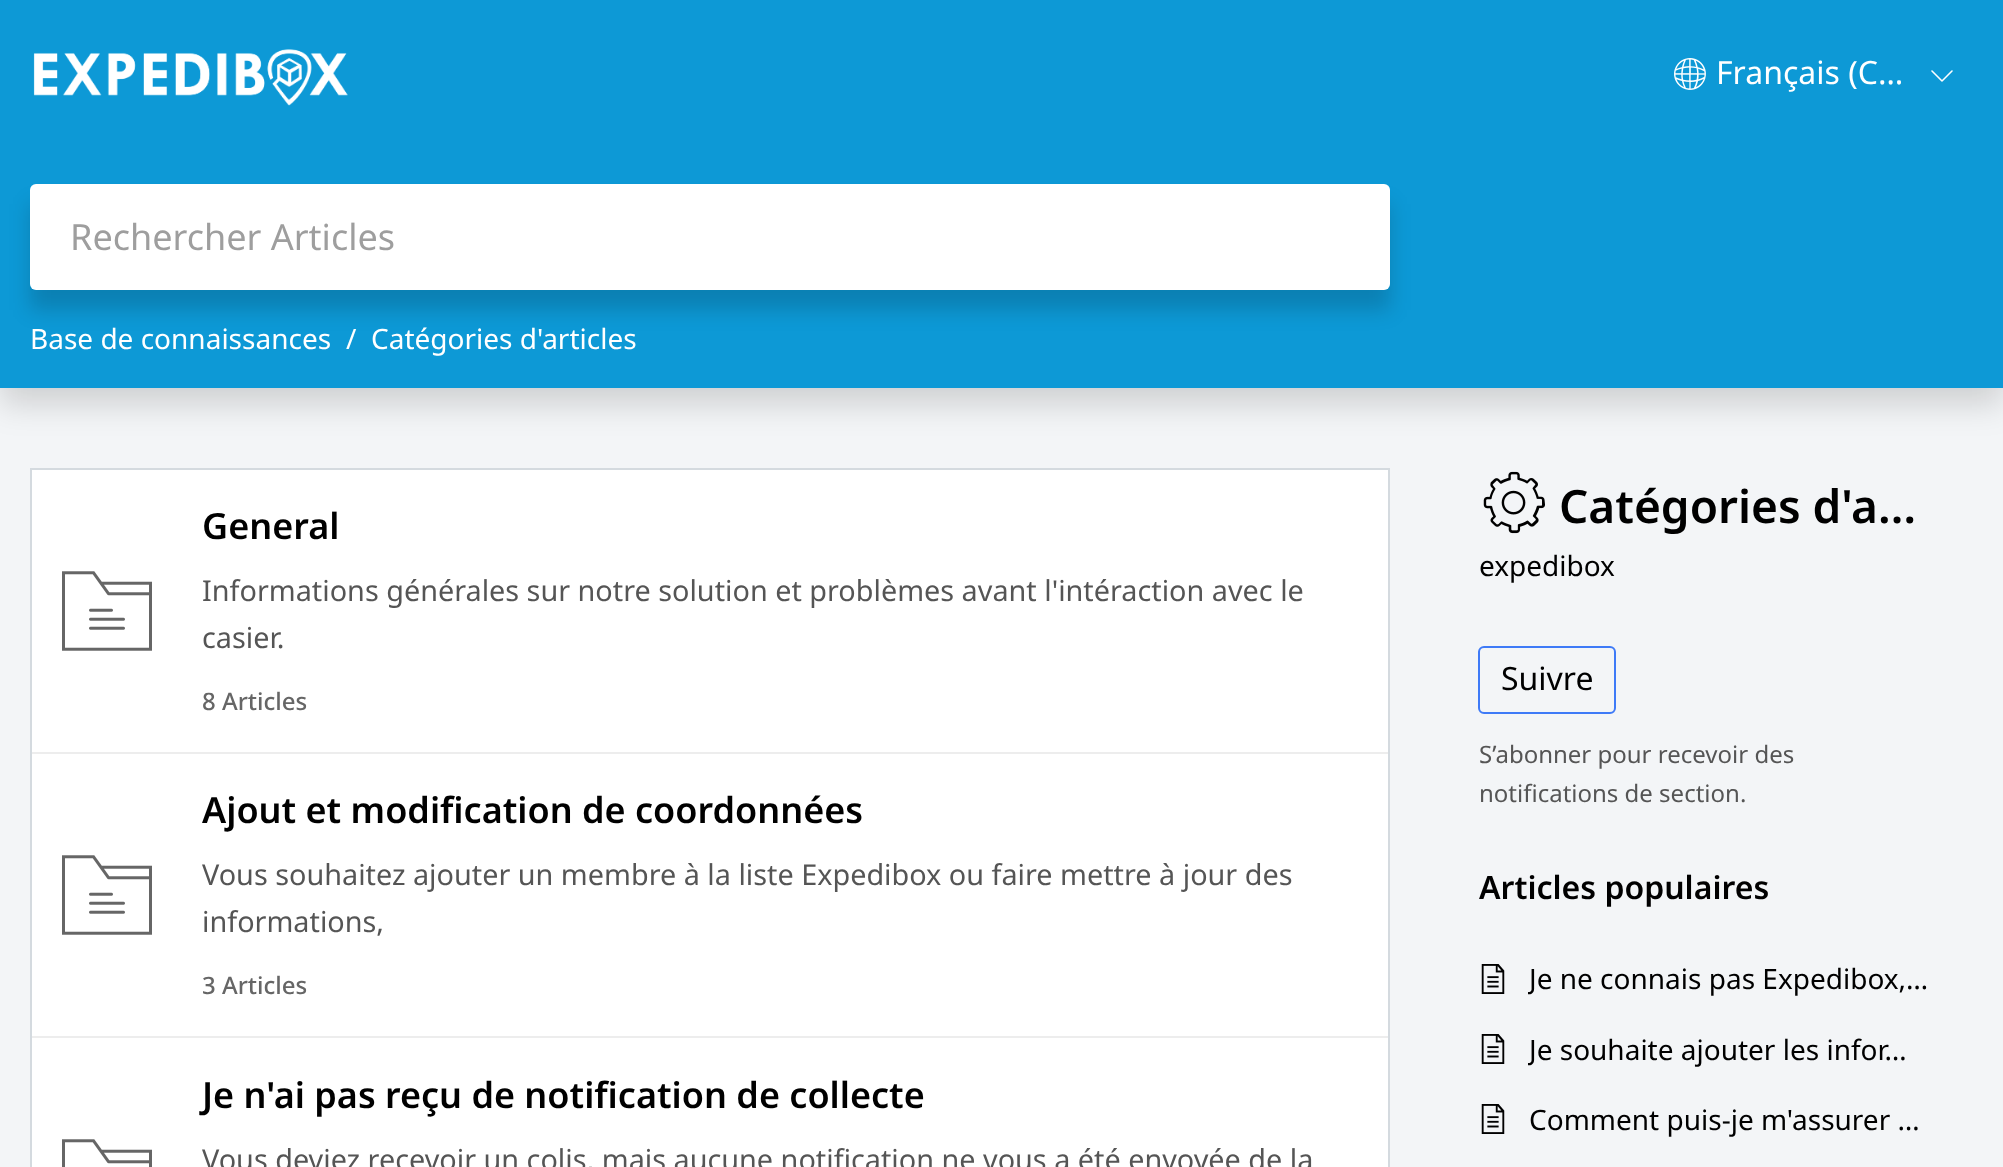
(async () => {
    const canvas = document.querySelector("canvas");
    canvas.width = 2003;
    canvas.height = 1167;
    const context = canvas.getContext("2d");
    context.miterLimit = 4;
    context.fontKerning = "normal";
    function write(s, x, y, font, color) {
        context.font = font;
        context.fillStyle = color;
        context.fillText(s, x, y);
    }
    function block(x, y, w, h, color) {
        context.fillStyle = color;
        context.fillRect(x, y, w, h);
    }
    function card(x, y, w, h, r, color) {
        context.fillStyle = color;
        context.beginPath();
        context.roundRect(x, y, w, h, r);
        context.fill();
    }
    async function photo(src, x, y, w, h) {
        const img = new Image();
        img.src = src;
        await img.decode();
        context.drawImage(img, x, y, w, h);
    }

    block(0, 0, 2003, 1167, "rgb(243, 245, 247)");
    context.fillStyle = "rgba(0, 0, 0, 0.15)";
    context.filter = "blur(16px)";
    context.beginPath();
    context.rect(0, 16, 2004, 388);
    context.fill();
    context.filter = "none";
    block(0, 0, 2003, 388, "rgb(13, 153, 214)");
    await photo("media/1.png", 33, 49, 315, 57);
    await photo("media/2.png", 1674, 58, 32, 32);
    write("Français (C…", 1716, 84, "32px Noto Sans", "rgb(255, 255, 255)");
    await photo("media/3.png", 1931, 70, 22, 12);
    context.fillStyle = "rgba(0, 0, 0, 0.16)";
    context.filter = "blur(10px)";
    context.beginPath();
    context.rect(30, 204, 1360, 106);
    context.fill();
    context.filter = "none";
    card(30, 184, 1360, 106, 6, "rgb(255, 255, 255)");
    write("Rechercher Articles", 70, 250, "36px Noto Sans", "rgb(158, 158, 158)");
    write("Base de connaissances", 30, 349, "28px Noto Sans", "rgb(255, 255, 255)");
    write("/", 346, 349, "28px Noto Sans", "rgb(255, 255, 255)");
    write("Catégories d'articles", 371, 349, "28px Noto Sans", "rgb(255, 255, 255)");
    context.strokeStyle = "rgb(212, 218, 223)";
    context.lineWidth = 2;
    context.strokeRect(31, 469, 1358, 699);
    block(32, 470, 1356, 282, "rgb(255, 255, 255)");
    block(32, 752, 1356, 2, "rgb(237, 237, 237)");
    await photo("media/4.png", 62, 571, 90, 80);
    write("General", 202, 539, "600 36px Noto Sans", "rgb(0, 0, 0)");
    write("Informations générales sur notre solution et problèmes avant l'intéraction avec le", 202, 601, "28.8px Noto Sans", "rgb(85, 85, 85)");
    write("casier.", 202, 648, "28.8px Noto Sans", "rgb(85, 85, 85)");
    write("8 Articles", 202, 710, "500 24px Noto Sans", "rgb(102, 102, 102)");
    block(32, 754, 1356, 282, "rgb(255, 255, 255)");
    block(32, 1036, 1356, 2, "rgb(237, 237, 237)");
    await photo("media/4.png", 62, 855, 90, 80);
    write("Ajout et modification de coordonnées", 202, 823, "600 36px Noto Sans", "rgb(0, 0, 0)");
    write("Vous souhaitez ajouter un membre à la liste Expedibox ou faire mettre à jour des", 202, 885, "28.8px Noto Sans", "rgb(85, 85, 85)");
    write("informations,", 202, 932, "28.8px Noto Sans", "rgb(85, 85, 85)");
    write("3 Articles", 202, 994, "500 24px Noto Sans", "rgb(102, 102, 102)");
    block(32, 1038, 1356, 129, "rgb(255, 255, 255)");
    await photo("media/5.png", 62, 1139, 90, 28);
    write("Je n'ai pas reçu de notification de collecte", 202, 1108, "600 36px Noto Sans", "rgb(0, 0, 0)");
    write("Vous deviez recevoir un colis, mais aucune notification ne vous a été envoyée de la", 202, 1170, "28.8px Noto Sans", "rgb(85, 85, 85)");
    await photo("media/6.png", 1483, 471, 62, 63);
    write("Catégories d'a…", 1559, 523, "600 46px Noto Sans", "rgb(0, 0, 0)");
    write("expedibox", 1479, 576, "28px Noto Sans", "rgb(0, 0, 0)");
    context.beginPath();
    context.roundRect(1479, 647, 136, 66, 5);
    context.strokeStyle = "rgb(62, 122, 247)";
    context.stroke();
    write("Suivre", 1501, 690, "32px Noto Sans", "rgb(0, 0, 0)");
    write("S’abonner pour recevoir des", 1479, 763, "24px Noto Sans", "rgb(85, 85, 85)");
    write("notifications de section.", 1479, 802, "24px Noto Sans", "rgb(85, 85, 85)");
    write("Articles populaires", 1479, 899, "600 32px Noto Sans", "rgb(0, 0, 0)");
    await photo("media/7.png", 1481, 964, 24, 30);
    context.save();
    context.beginPath();
    context.rect(1528, 958, 406, 44);
    context.clip();
    write("Je ne connais pas Expedibox,…", 1529, 989, "28px Noto Sans", "rgb(0, 0, 0)");
    context.restore();
    await photo("media/7.png", 1481, 1034, 24, 30);
    context.save();
    context.beginPath();
    context.rect(1528, 1028, 406, 44);
    context.clip();
    write("Je souhaite ajouter les infor…", 1529, 1060, "28px Noto Sans", "rgb(0, 0, 0)");
    context.restore();
    await photo("media/7.png", 1481, 1104, 24, 30);
    write("Comment puis-je m'assurer …", 1529, 1130, "28px Noto Sans", "rgb(0, 0, 0)");
})();
